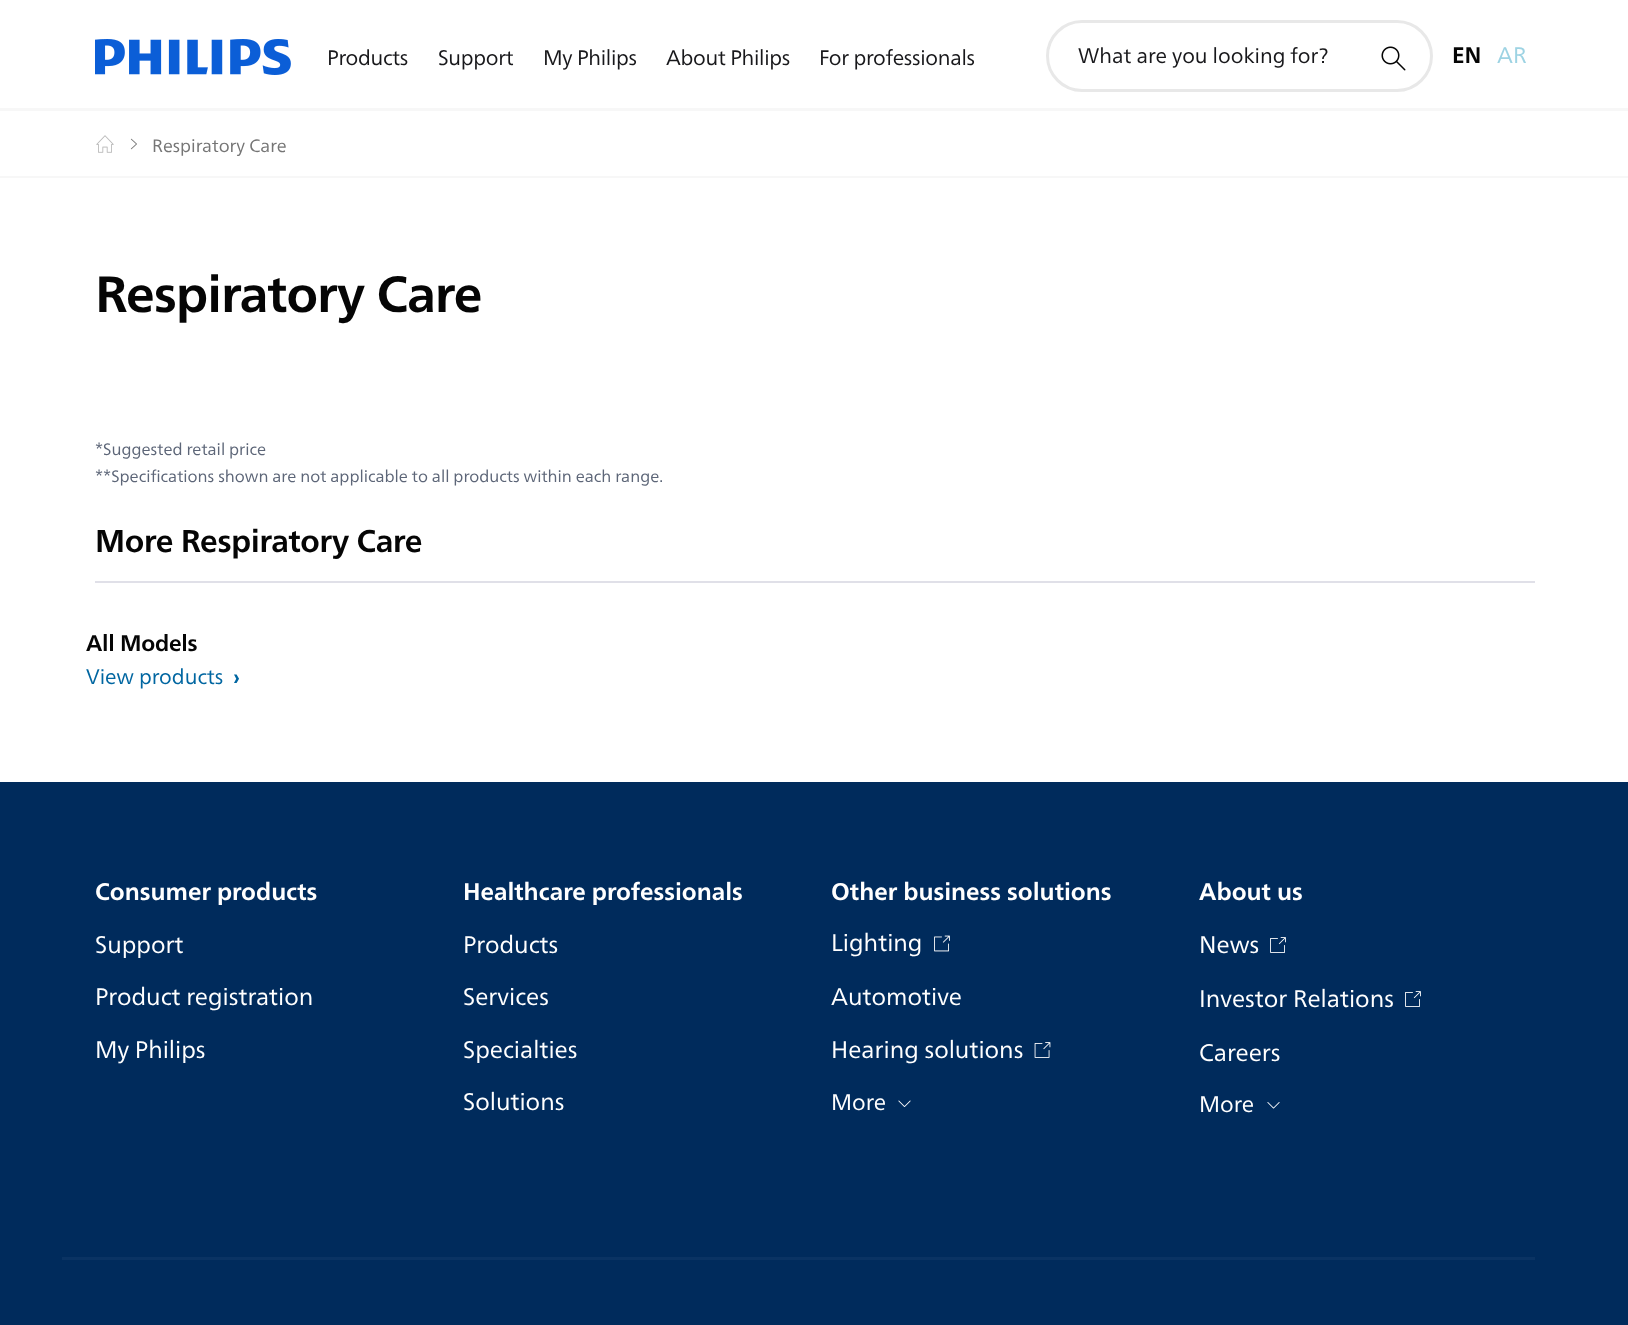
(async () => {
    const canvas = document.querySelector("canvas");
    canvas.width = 1628;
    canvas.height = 1325;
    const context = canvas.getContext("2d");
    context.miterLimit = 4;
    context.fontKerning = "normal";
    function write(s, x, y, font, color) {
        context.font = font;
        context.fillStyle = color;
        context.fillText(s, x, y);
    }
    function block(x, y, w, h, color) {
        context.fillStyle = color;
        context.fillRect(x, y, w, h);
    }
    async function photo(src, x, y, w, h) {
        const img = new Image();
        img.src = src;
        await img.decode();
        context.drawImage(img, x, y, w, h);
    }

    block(0, 0, 1628, 1325, "rgb(255, 255, 255)");
    await photo("media/1.png", 95, 39, 196, 36);
    context.letterSpacing = "-0.3px";
    write("Products", 327, 65, "21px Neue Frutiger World", "rgb(24, 24, 27)");
    write("Support", 438, 65, "21px Neue Frutiger World", "rgb(24, 24, 27)");
    write("My Philips", 543, 65, "21px Neue Frutiger World", "rgb(24, 24, 27)");
    write("About Philips", 666, 65, "21px Neue Frutiger World", "rgb(24, 24, 27)");
    write("For professionals", 819, 65, "21px Neue Frutiger World", "rgb(24, 24, 27)");
    block(0, 108, 1628, 3, "rgb(247, 247, 247)");
    context.beginPath();
    context.roundRect(1047.5, 21.5, 384, 69, 34.5);
    context.strokeStyle = "rgb(232, 232, 232)";
    context.lineWidth = 3;
    context.stroke();
    context.letterSpacing = "0px";
    write("What are you looking for?", 1078, 63, "21px Neue Frutiger World", "rgb(24, 24, 27)");
    await photo("media/2.png", 1381, 46, 25, 25);
    write("EN", 1452, 63, "bold 22.5px Neue Frutiger World", "rgb(5, 5, 5)");
    write("AR", 1497, 63, "22.5px Neue Frutiger World", "rgb(157, 211, 227)");
    block(0, 176, 1628, 2, "rgb(247, 247, 247)");
    await photo("media/3.png", 96, 135, 18, 18);
    await photo("media/4.png", 130, 138, 7, 12);
    write("Respiratory Care", 152, 152, "18px Neue Frutiger World", "rgb(117, 117, 117)");
    context.letterSpacing = "-0.75px";
    write("Respiratory Care", 95, 312, "bold 51px Neue Frutiger World", "rgb(5, 5, 5)");
    context.letterSpacing = "0px";
    write("*Suggested retail price", 95, 455, "16.5px Neue Frutiger World", "rgb(93, 102, 120)");
    write("**Specifications shown are not applicable to all products within each range.", 95, 482, "16.5px Neue Frutiger World", "rgb(93, 102, 120)");
    block(95, 581, 1440, 2, "rgb(224, 224, 232)");
    context.letterSpacing = "-0.3px";
    write("More Respiratory Care", 95, 552, "bold 31.5px Neue Frutiger World", "rgb(5, 5, 5)");
    context.letterSpacing = "-0.25px";
    write("All Models", 86, 651, "bold 22.5px Neue Frutiger World", "rgb(5, 5, 5)");
    context.letterSpacing = "0px";
    write("View products", 86, 684, "21px Neue Frutiger World", "rgb(0, 102, 161)");
    write("›", 233, 684, "bold 21px Neue Frutiger World", "rgb(0, 102, 161)");
    block(0, 782, 1628, 543, "rgb(0, 43, 92)");
    write("Consumer products", 95, 900, "bold 24px Neue Frutiger World", "rgb(255, 255, 255)");
    write("Support", 95, 953, "24px Neue Frutiger World", "rgb(255, 255, 255)");
    write("Product registration", 95, 1005, "24px Neue Frutiger World", "rgb(255, 255, 255)");
    write("My Philips", 95, 1058, "24px Neue Frutiger World", "rgb(255, 255, 255)");
    write("Healthcare professionals", 463, 900, "bold 24px Neue Frutiger World", "rgb(255, 255, 255)");
    write("Products", 463, 953, "24px Neue Frutiger World", "rgb(255, 255, 255)");
    write("Services", 463, 1005, "24px Neue Frutiger World", "rgb(255, 255, 255)");
    write("Specialties", 463, 1058, "24px Neue Frutiger World", "rgb(255, 255, 255)");
    write("Solutions", 463, 1110, "24px Neue Frutiger World", "rgb(255, 255, 255)");
    write("Other business solutions", 831, 900, "bold 24px Neue Frutiger World", "rgb(255, 255, 255)");
    write("Lighting", 831, 951, "24px Neue Frutiger World", "rgb(255, 255, 255)");
    await photo("media/5.png", 934, 935, 16, 17);
    write("Automotive", 831, 1005, "24px Neue Frutiger World", "rgb(255, 255, 255)");
    write("Hearing solutions", 831, 1058, "24px Neue Frutiger World", "rgb(255, 255, 255)");
    await photo("media/6.png", 1034, 1042, 17, 16);
    write("More", 831, 1110, "22.5px Neue Frutiger World", "rgb(255, 255, 255)");
    await photo("media/7.png", 898, 1100, 13, 7);
    write("About us", 1199, 900, "bold 24px Neue Frutiger World", "rgb(255, 255, 255)");
    write("News", 1199, 953, "24px Neue Frutiger World", "rgb(255, 255, 255)");
    await photo("media/8.png", 1270, 937, 16, 16);
    write("Investor Relations", 1199, 1007, "24px Neue Frutiger World", "rgb(255, 255, 255)");
    await photo("media/8.png", 1405, 991, 16, 16);
    write("Careers", 1199, 1061, "24px Neue Frutiger World", "rgb(255, 255, 255)");
    write("More", 1199, 1112, "22.5px Neue Frutiger World", "rgb(255, 255, 255)");
    await photo("media/9.png", 1267, 1102, 13, 7);
    block(62, 1257, 1473, 3, "rgb(10, 51, 99)");
})();
